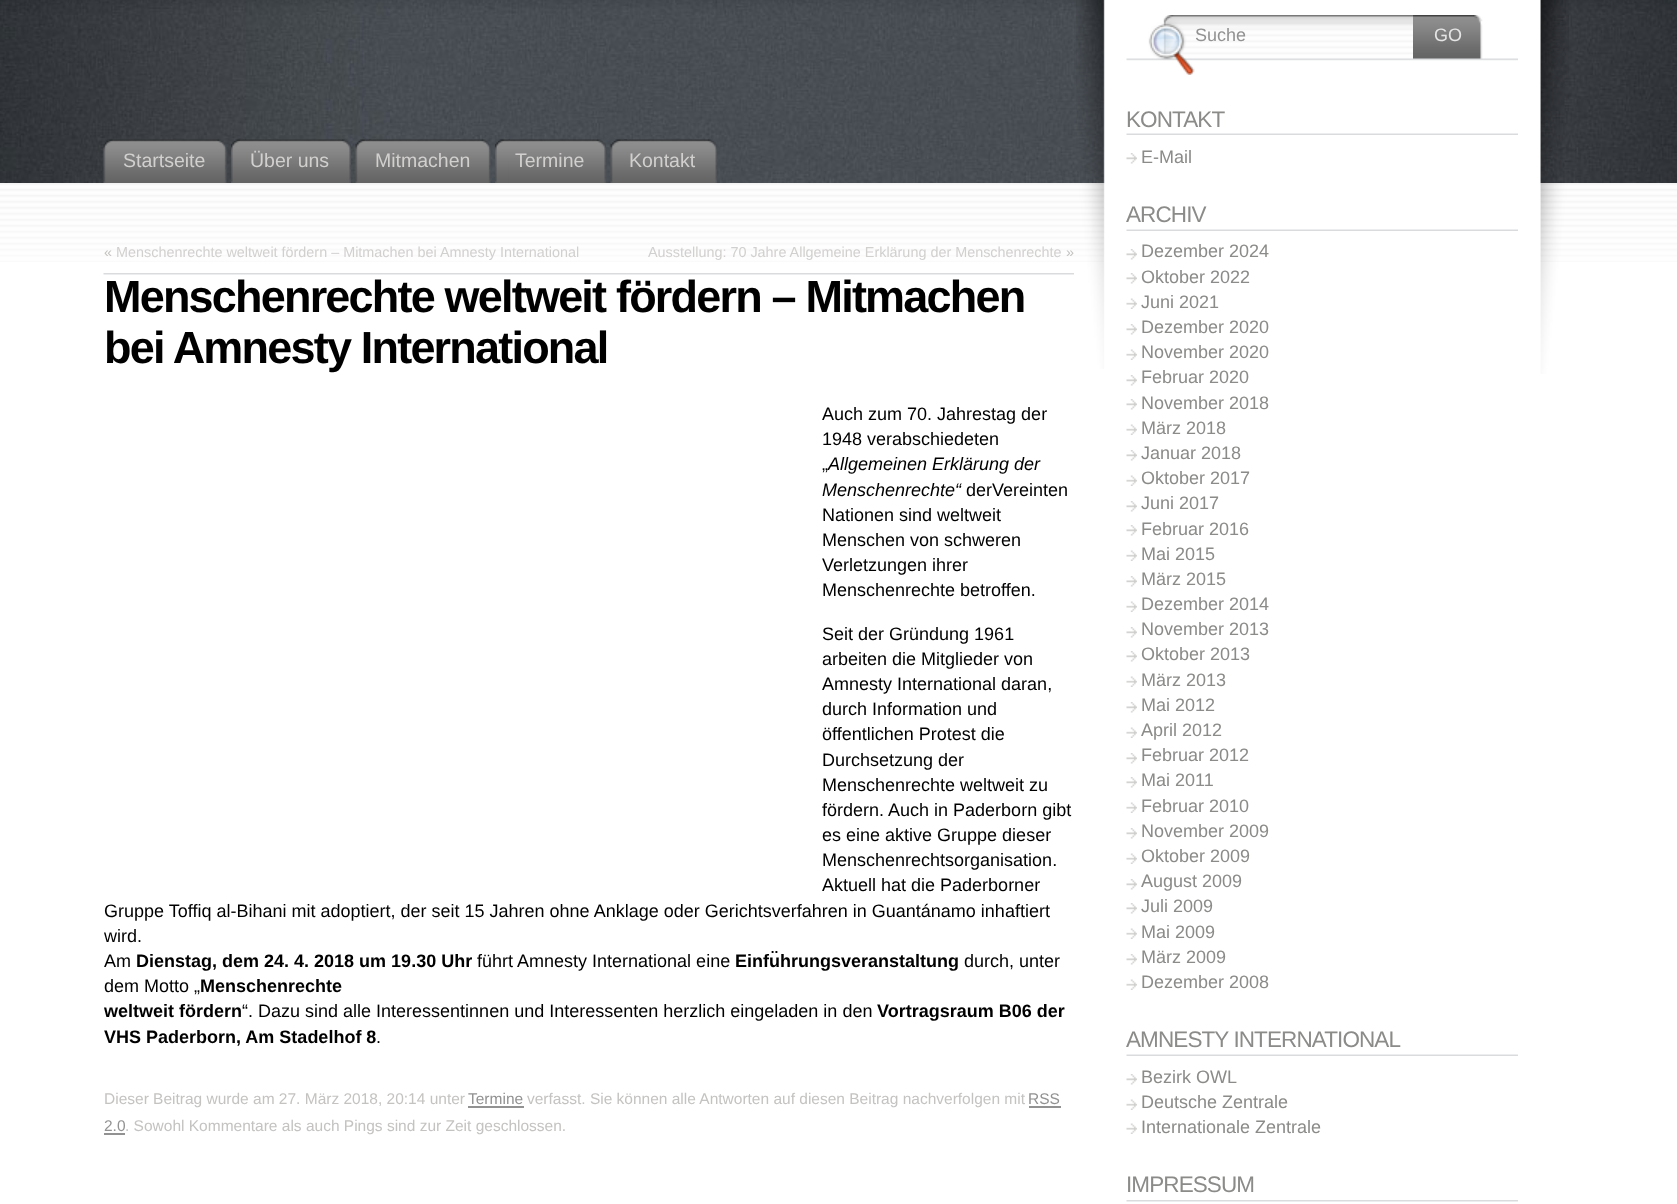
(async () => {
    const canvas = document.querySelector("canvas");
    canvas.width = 1677;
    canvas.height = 1204;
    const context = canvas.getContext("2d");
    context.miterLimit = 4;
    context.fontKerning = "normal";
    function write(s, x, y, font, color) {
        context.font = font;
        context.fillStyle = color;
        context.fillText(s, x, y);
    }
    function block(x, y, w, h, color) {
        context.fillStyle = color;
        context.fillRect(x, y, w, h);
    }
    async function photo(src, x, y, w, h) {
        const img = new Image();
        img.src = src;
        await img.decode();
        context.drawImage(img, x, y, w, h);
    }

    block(0, 0, 1677, 1204, "rgb(255, 255, 255)");
    await photo("media/1.png", 0, 183, 1677, 79);
    await photo("media/2.png", 0, 0, 1677, 183);
    await photo("media/3.png", 103, 139, 16, 44);
    await photo("media/4.png", 118, 139, 109, 44);
    write("Startseite", 123, 167, "19.5px Liberation Sans", "rgb(210, 208, 207)");
    await photo("media/5.png", 231, 139, 15, 44);
    await photo("media/6.png", 245, 139, 106, 44);
    write("Über uns", 250, 167, "19.5px Liberation Sans", "rgb(210, 208, 207)");
    await photo("media/7.png", 355, 139, 16, 44);
    await photo("media/8.png", 369, 139, 122, 44);
    write("Mitmachen", 375, 167, "19.5px Liberation Sans", "rgb(210, 208, 207)");
    await photo("media/9.png", 495, 139, 15, 44);
    await photo("media/10.png", 508, 139, 98, 44);
    write("Termine", 515, 167, "19.5px Liberation Sans", "rgb(210, 208, 207)");
    await photo("media/11.png", 610, 139, 17, 44);
    await photo("media/12.png", 624, 139, 93, 44);
    write("Kontakt", 629, 167, "19.5px Liberation Sans", "rgb(210, 208, 207)");
    write("«", 104, 257, "14.4px Liberation Sans", "rgb(196, 195, 193)");
    write("Menschenrechte weltweit fördern – Mitmachen bei Amnesty International", 116, 257, "14.4px Liberation Sans", "rgb(210, 208, 207)");
    write("Ausstellung: 70 Jahre Allgemeine Erklärung der Menschenrechte", 648, 257, "14.4px Liberation Sans", "rgb(210, 208, 207)");
    write("»", 1066, 257, "14.4px Liberation Sans", "rgb(196, 195, 193)");
    await photo("media/13.png", 103, 273, 971, 2);
    context.letterSpacing = "-1.8px";
    write("Menschenrechte weltweit fördern – Mitmachen", 104, 312, "bold 45px Liberation Sans", "rgb(0, 0, 0)");
    write("bei Amnesty International", 104, 363, "bold 45px Liberation Sans", "rgb(0, 0, 0)");
    context.letterSpacing = "0px";
    write("Auch zum 70. Jahrestag der", 822, 420, "18px Liberation Sans", "rgb(0, 0, 0)");
    write("1948 verabschiedeten", 822, 445, "18px Liberation Sans", "rgb(0, 0, 0)");
    write("„", 822, 470, "18px Liberation Sans", "rgb(0, 0, 0)");
    write("Allgemeinen Erklärung der", 828, 470, "italic 18px Liberation Sans", "rgb(0, 0, 0)");
    write("Menschenrechte“", 822, 496, "italic 18px Liberation Sans", "rgb(0, 0, 0)");
    write("derVereinten", 966, 496, "18px Liberation Sans", "rgb(0, 0, 0)");
    write("Nationen sind weltweit", 822, 521, "18px Liberation Sans", "rgb(0, 0, 0)");
    write("Menschen von schweren", 822, 546, "18px Liberation Sans", "rgb(0, 0, 0)");
    write("Verletzungen ihrer", 822, 571, "18px Liberation Sans", "rgb(0, 0, 0)");
    write("Menschenrechte betroffen.", 822, 596, "18px Liberation Sans", "rgb(0, 0, 0)");
    write("Seit der Gründung 1961", 822, 640, "18px Liberation Sans", "rgb(0, 0, 0)");
    write("arbeiten die Mitglieder von", 822, 665, "18px Liberation Sans", "rgb(0, 0, 0)");
    write("Amnesty International daran,", 822, 690, "18px Liberation Sans", "rgb(0, 0, 0)");
    write("durch Information und", 822, 715, "18px Liberation Sans", "rgb(0, 0, 0)");
    write("öffentlichen Protest die", 822, 740, "18px Liberation Sans", "rgb(0, 0, 0)");
    write("Durchsetzung der", 822, 766, "18px Liberation Sans", "rgb(0, 0, 0)");
    write("Menschenrechte weltweit zu", 822, 791, "18px Liberation Sans", "rgb(0, 0, 0)");
    write("fördern. Auch in Paderborn gibt", 822, 816, "18px Liberation Sans", "rgb(0, 0, 0)");
    write("es eine aktive Gruppe dieser", 822, 841, "18px Liberation Sans", "rgb(0, 0, 0)");
    write("Menschenrechtsorganisation.", 822, 866, "18px Liberation Sans", "rgb(0, 0, 0)");
    write("Aktuell hat die Paderborner", 822, 891, "18px Liberation Sans", "rgb(0, 0, 0)");
    write("Gruppe Toffiq al-Bihani mit adoptiert, der seit 15 Jahren ohne Anklage oder Gerichtsverfahren in Guantánamo inhaftiert", 104, 917, "18px Liberation Sans", "rgb(0, 0, 0)");
    write("wird.", 104, 942, "18px Liberation Sans", "rgb(0, 0, 0)");
    write("Am", 104, 967, "18px Liberation Sans", "rgb(0, 0, 0)");
    write("Dienstag, dem 24. 4. 2018 um 19.30 Uhr", 136, 967, "bold 18px Liberation Sans", "rgb(0, 0, 0)");
    write("führt Amnesty International eine", 477, 967, "18px Liberation Sans", "rgb(0, 0, 0)");
    write("Einführungsveranstaltung", 735, 967, "bold 18px Liberation Sans", "rgb(0, 0, 0)");
    write("durch, unter", 964, 967, "18px Liberation Sans", "rgb(0, 0, 0)");
    write("dem Motto „", 104, 992, "18px Liberation Sans", "rgb(0, 0, 0)");
    write("Menschenrechte", 200, 992, "bold 18px Liberation Sans", "rgb(0, 0, 0)");
    write("weltweit fördern", 104, 1017, "bold 18px Liberation Sans", "rgb(0, 0, 0)");
    write("“. Dazu sind alle Interessentinnen und Interessenten herzlich eingeladen in den", 242, 1017, "18px Liberation Sans", "rgb(0, 0, 0)");
    write("Vortragsraum B06 der", 877, 1017, "bold 18px Liberation Sans", "rgb(0, 0, 0)");
    write("VHS Paderborn, Am Stadelhof 8", 104, 1043, "bold 18px Liberation Sans", "rgb(0, 0, 0)");
    write(".", 376, 1043, "18px Liberation Sans", "rgb(0, 0, 0)");
    write("Dieser Beitrag wurde am 27. März 2018, 20:14 unter", 104, 1104, "15.5px Liberation Sans", "rgb(196, 195, 193)");
    write("Termine", 468, 1104, "15.5px Liberation Sans", "rgb(146, 146, 146)");
    block(468, 1106, 56, 2, "rgb(146, 146, 146)");
    write("verfasst. Sie können alle Antworten auf diesen Beitrag nachverfolgen mit", 527, 1104, "15.5px Liberation Sans", "rgb(196, 195, 193)");
    write("RSS", 1028, 1104, "15.5px Liberation Sans", "rgb(146, 146, 146)");
    block(1029, 1106, 32, 2, "rgb(146, 146, 146)");
    write("2.0", 104, 1131, "15.5px Liberation Sans", "rgb(146, 146, 146)");
    write(". Sowohl Kommentare als auch Pings sind zur Zeit geschlossen.", 125, 1131, "15.5px Liberation Sans", "rgb(196, 195, 193)");
    block(104, 1133, 21, 2, "rgb(146, 146, 146)");
    await photo("media/14.png", 1076, 0, 46, 369);
    await photo("media/15.png", 1122, 0, 447, 374);
    await photo("media/16.png", 1126, 15, 392, 60);
    await photo("media/17.png", 1413, 15, 105, 44);
    write("Suche", 1195, 41, "18px Liberation Sans", "rgb(146, 146, 146)");
    write("GO", 1434, 41, "18px Liberation Sans", "rgb(229, 229, 229)");
    await photo("media/18.png", 1126, 133, 392, 2);
    context.letterSpacing = "-0.9px";
    write("KONTAKT", 1126, 127, "22.5px Liberation Sans", "rgb(139, 139, 137)");
    await photo("media/19.png", 1126, 153, 11, 11);
    context.letterSpacing = "0px";
    write("E-Mail", 1141, 163, "18px Liberation Sans", "rgb(139, 139, 137)");
    await photo("media/18.png", 1126, 229, 392, 2);
    context.letterSpacing = "-0.9px";
    write("ARCHIV", 1126, 222, "22.5px Liberation Sans", "rgb(139, 139, 137)");
    await photo("media/19.png", 1126, 249, 11, 11);
    context.letterSpacing = "0px";
    write("Dezember 2024", 1141, 257, "18px Liberation Sans", "rgb(139, 139, 137)");
    await photo("media/19.png", 1126, 273, 11, 11);
    write("Oktober 2022", 1141, 283, "18px Liberation Sans", "rgb(139, 139, 137)");
    await photo("media/20.png", 1126, 298, 11, 11);
    write("Juni 2021", 1141, 308, "18px Liberation Sans", "rgb(139, 139, 137)");
    await photo("media/19.png", 1126, 324, 11, 11);
    write("Dezember 2020", 1141, 333, "18px Liberation Sans", "rgb(139, 139, 137)");
    await photo("media/20.png", 1126, 349, 11, 11);
    write("November 2020", 1141, 358, "18px Liberation Sans", "rgb(139, 139, 137)");
    await photo("media/19.png", 1126, 375, 11, 11);
    write("Februar 2020", 1141, 383, "18px Liberation Sans", "rgb(139, 139, 137)");
    await photo("media/19.png", 1126, 399, 11, 11);
    write("November 2018", 1141, 409, "18px Liberation Sans", "rgb(139, 139, 137)");
    await photo("media/20.png", 1126, 424, 11, 11);
    write("März 2018", 1141, 434, "18px Liberation Sans", "rgb(139, 139, 137)");
    await photo("media/19.png", 1126, 450, 11, 11);
    write("Januar 2018", 1141, 459, "18px Liberation Sans", "rgb(139, 139, 137)");
    await photo("media/20.png", 1126, 475, 11, 11);
    write("Oktober 2017", 1141, 484, "18px Liberation Sans", "rgb(139, 139, 137)");
    await photo("media/19.png", 1126, 501, 11, 11);
    write("Juni 2017", 1141, 509, "18px Liberation Sans", "rgb(139, 139, 137)");
    await photo("media/19.png", 1126, 525, 11, 11);
    write("Februar 2016", 1141, 535, "18px Liberation Sans", "rgb(139, 139, 137)");
    await photo("media/20.png", 1126, 550, 11, 11);
    write("Mai 2015", 1141, 560, "18px Liberation Sans", "rgb(139, 139, 137)");
    await photo("media/19.png", 1126, 576, 11, 11);
    write("März 2015", 1141, 585, "18px Liberation Sans", "rgb(139, 139, 137)");
    await photo("media/20.png", 1126, 601, 11, 11);
    write("Dezember 2014", 1141, 610, "18px Liberation Sans", "rgb(139, 139, 137)");
    await photo("media/19.png", 1126, 627, 11, 11);
    write("November 2013", 1141, 635, "18px Liberation Sans", "rgb(139, 139, 137)");
    await photo("media/19.png", 1126, 651, 11, 11);
    write("Oktober 2013", 1141, 660, "18px Liberation Sans", "rgb(139, 139, 137)");
    await photo("media/20.png", 1126, 676, 11, 11);
    write("März 2013", 1141, 686, "18px Liberation Sans", "rgb(139, 139, 137)");
    await photo("media/19.png", 1126, 702, 11, 11);
    write("Mai 2012", 1141, 711, "18px Liberation Sans", "rgb(139, 139, 137)");
    await photo("media/20.png", 1126, 727, 11, 11);
    write("April 2012", 1141, 736, "18px Liberation Sans", "rgb(139, 139, 137)");
    await photo("media/19.png", 1126, 753, 11, 11);
    write("Februar 2012", 1141, 761, "18px Liberation Sans", "rgb(139, 139, 137)");
    await photo("media/19.png", 1126, 777, 11, 11);
    write("Mai 2011", 1141, 786, "18px Liberation Sans", "rgb(139, 139, 137)");
    await photo("media/20.png", 1126, 802, 11, 11);
    write("Februar 2010", 1141, 812, "18px Liberation Sans", "rgb(139, 139, 137)");
    await photo("media/19.png", 1126, 828, 11, 11);
    write("November 2009", 1141, 837, "18px Liberation Sans", "rgb(139, 139, 137)");
    await photo("media/20.png", 1126, 853, 11, 11);
    write("Oktober 2009", 1141, 862, "18px Liberation Sans", "rgb(139, 139, 137)");
    await photo("media/19.png", 1126, 879, 11, 11);
    write("August 2009", 1141, 887, "18px Liberation Sans", "rgb(139, 139, 137)");
    await photo("media/19.png", 1126, 903, 11, 11);
    write("Juli 2009", 1141, 912, "18px Liberation Sans", "rgb(139, 139, 137)");
    await photo("media/20.png", 1126, 928, 11, 11);
    write("Mai 2009", 1141, 938, "18px Liberation Sans", "rgb(139, 139, 137)");
    await photo("media/19.png", 1126, 954, 11, 11);
    write("März 2009", 1141, 963, "18px Liberation Sans", "rgb(139, 139, 137)");
    await photo("media/20.png", 1126, 979, 11, 11);
    write("Dezember 2008", 1141, 988, "18px Liberation Sans", "rgb(139, 139, 137)");
    await photo("media/18.png", 1126, 1054, 392, 2);
    context.letterSpacing = "-0.9px";
    write("AMNESTY INTERNATIONAL", 1126, 1047, "22.5px Liberation Sans", "rgb(139, 139, 137)");
    await photo("media/19.png", 1126, 1074, 11, 11);
    context.letterSpacing = "0px";
    write("Bezirk OWL", 1141, 1083, "18px Liberation Sans", "rgb(139, 139, 137)");
    await photo("media/20.png", 1126, 1099, 11, 11);
    write("Deutsche Zentrale", 1141, 1108, "18px Liberation Sans", "rgb(139, 139, 137)");
    await photo("media/20.png", 1126, 1123, 11, 11);
    write("Internationale Zentrale", 1141, 1133, "18px Liberation Sans", "rgb(139, 139, 137)");
    await photo("media/21.png", 1126, 1200, 392, 2);
    context.letterSpacing = "-0.9px";
    write("IMPRESSUM", 1126, 1192, "22.5px Liberation Sans", "rgb(139, 139, 137)");
})();
